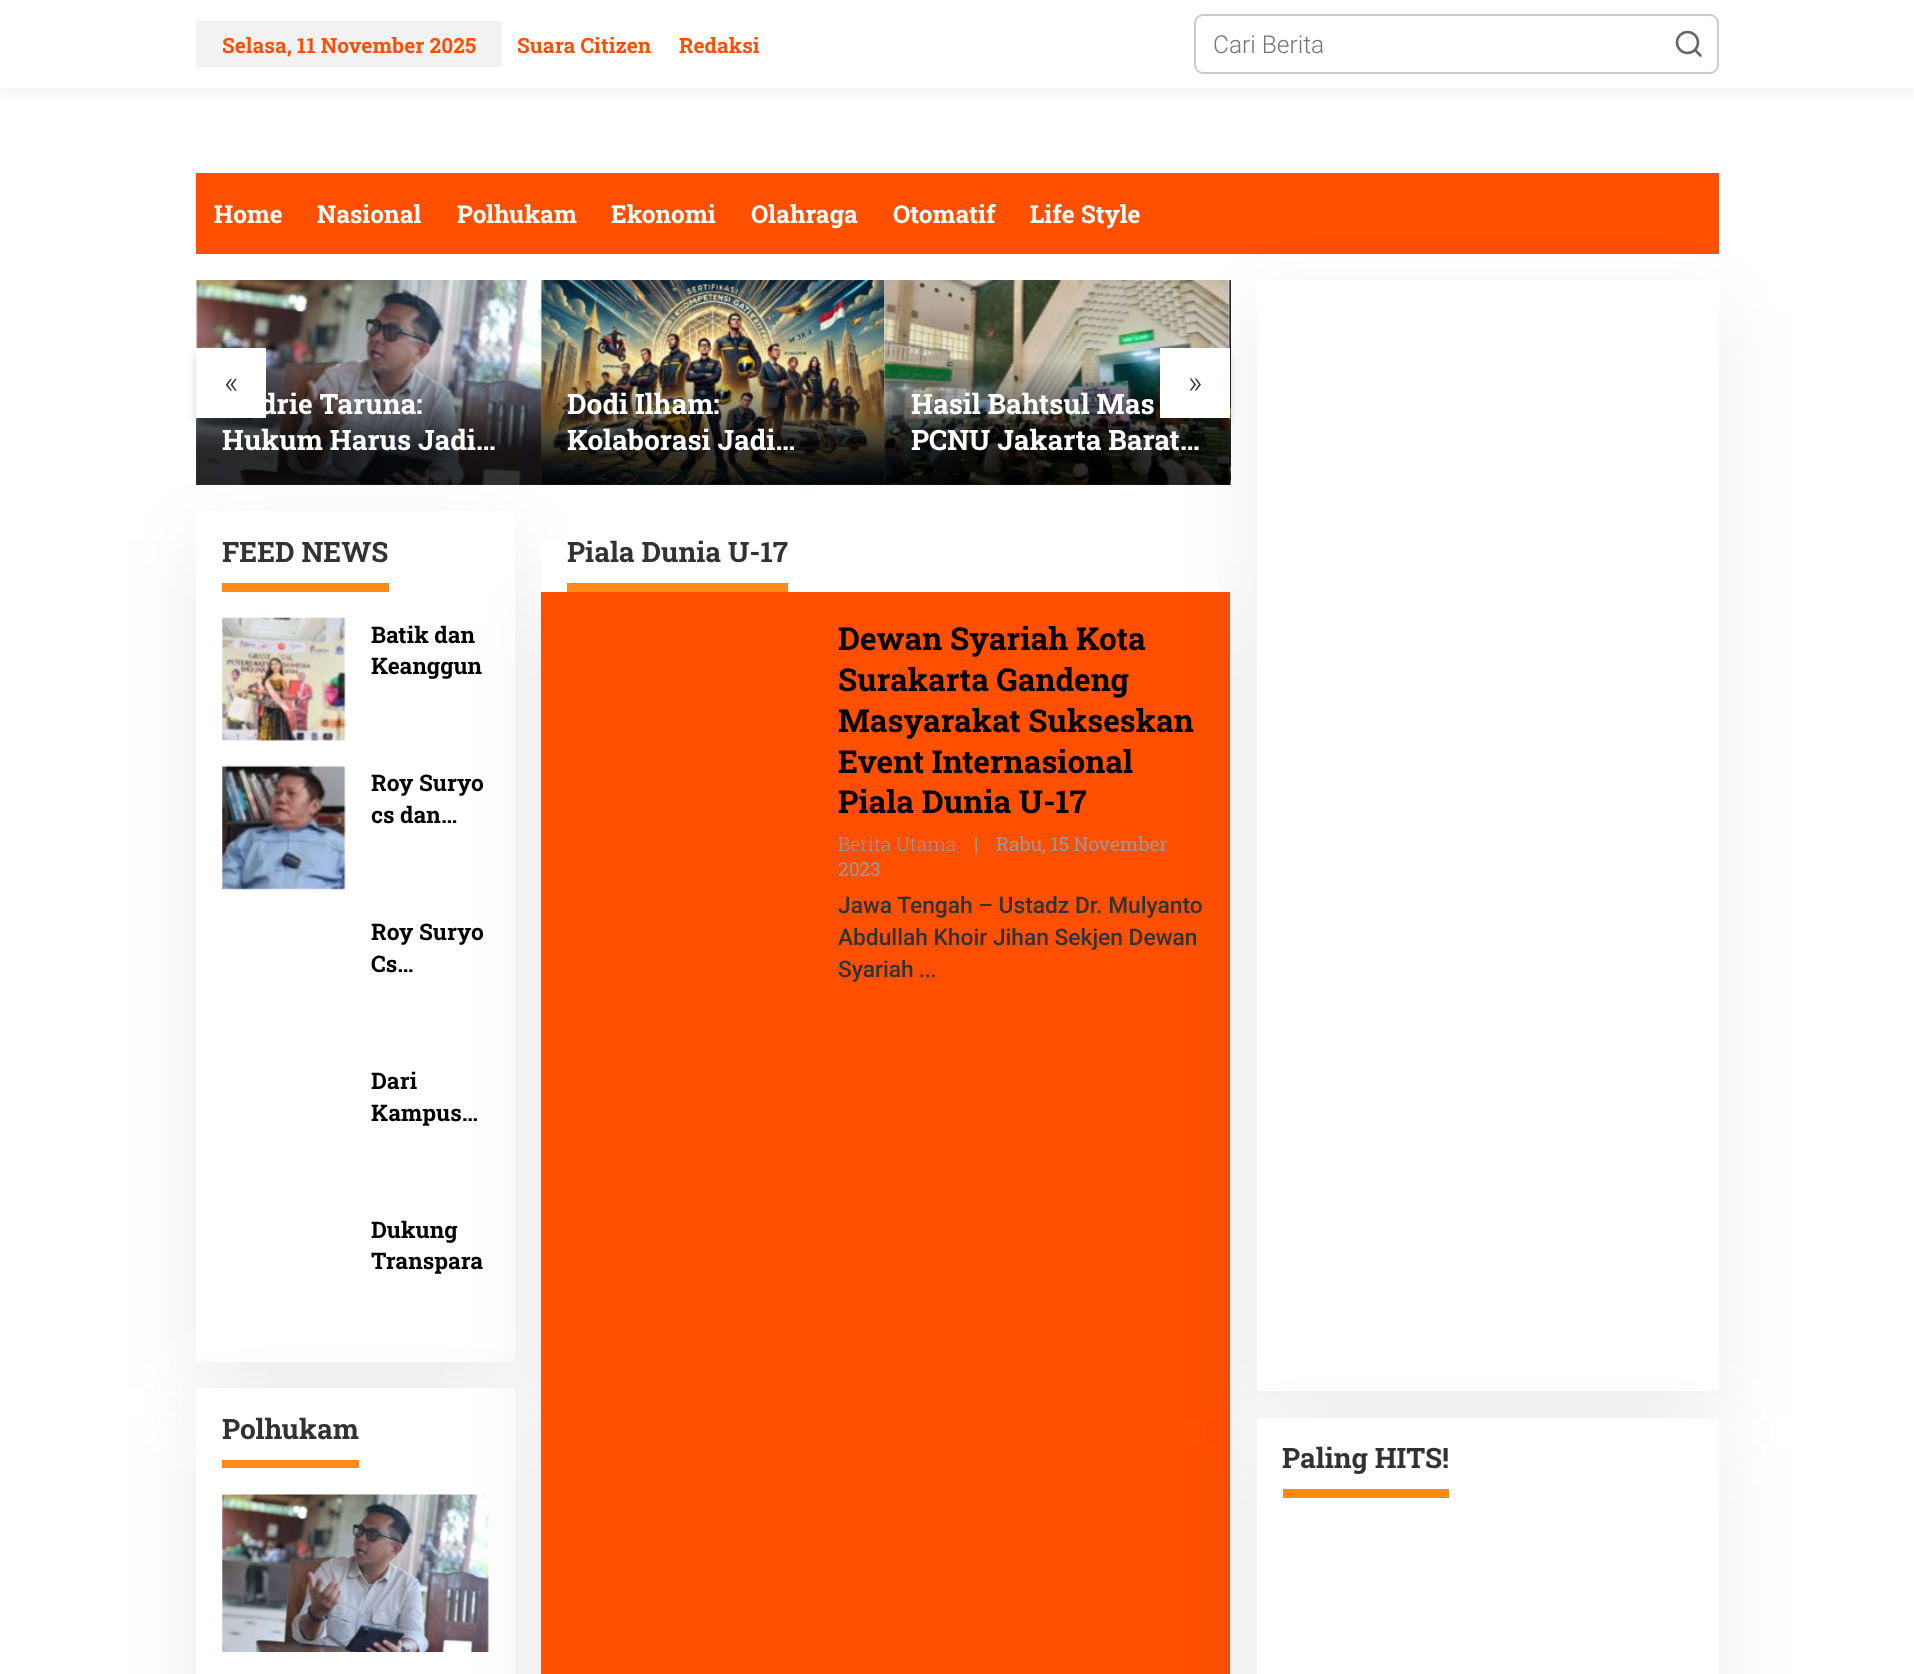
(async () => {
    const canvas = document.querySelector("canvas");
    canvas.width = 1914;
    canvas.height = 1674;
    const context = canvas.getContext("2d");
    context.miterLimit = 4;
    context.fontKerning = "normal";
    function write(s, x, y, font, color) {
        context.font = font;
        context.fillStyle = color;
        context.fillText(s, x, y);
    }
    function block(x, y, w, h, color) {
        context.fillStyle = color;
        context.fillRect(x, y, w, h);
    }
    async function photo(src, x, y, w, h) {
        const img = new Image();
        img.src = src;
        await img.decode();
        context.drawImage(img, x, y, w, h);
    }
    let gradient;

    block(0, 0, 1914, 1674, "rgb(255, 255, 255)");
    context.fillStyle = "rgba(0, 0, 0, 0.1)";
    context.filter = "blur(9px)";
    context.beginPath();
    context.rect(0, 0, 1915, 88);
    context.fill();
    context.filter = "none";
    block(0, 0, 1914, 88, "rgb(255, 255, 255)");
    block(196, 21, 306, 46, "rgb(242, 242, 242)");
    write("Selasa, 11 November 2025", 222, 53, "bold 21px Roboto Slab", "rgb(254, 80, 0)");
    write("Suara Citizen", 517, 53, "bold 21px Roboto Slab", "rgb(254, 80, 0)");
    write("Redaksi", 679, 53, "bold 21px Roboto Slab", "rgb(254, 80, 0)");
    context.beginPath();
    context.roundRect(1195, 15, 523, 58, 8);
    context.strokeStyle = "rgb(204, 204, 204)";
    context.lineWidth = 2;
    context.stroke();
    write("Cari Berita", 1213, 53, "300 24.5px Roboto", "rgb(117, 117, 117)");
    context.beginPath();
    context.arc(1687.5, 42.5, 10.5, 0, Math.PI * 2);
    context.strokeStyle = "rgb(102, 102, 102)";
    context.lineWidth = 2.6;
    context.stroke();
    context.beginPath();
    context.moveTo(1700.5, 55.5);
    context.lineTo(1695, 50);
    context.lineCap = "round";
    context.lineJoin = "round";
    context.stroke();
    block(196, 173, 1523, 81, "rgb(254, 80, 0)");
    write("Home", 214, 223, "bold 24.5px Roboto Slab", "rgb(255, 255, 255)");
    write("Nasional", 317, 223, "bold 24.5px Roboto Slab", "rgb(255, 255, 255)");
    write("Polhukam", 457, 223, "bold 24.5px Roboto Slab", "rgb(255, 255, 255)");
    write("Ekonomi", 611, 223, "bold 24.5px Roboto Slab", "rgb(255, 255, 255)");
    write("Olahraga", 751, 223, "bold 24.5px Roboto Slab", "rgb(255, 255, 255)");
    write("Otomatif", 893, 223, "bold 24.5px Roboto Slab", "rgb(255, 255, 255)");
    write("Life Style", 1030, 223, "bold 24.5px Roboto Slab", "rgb(255, 255, 255)");
    await photo("media/1.png", 196, 280, 346, 205);
    gradient = context.createLinearGradient(369, 361, 369, 485);
    gradient.addColorStop(0, "rgba(0, 0, 0, 0)");
    gradient.addColorStop(0.7, "rgba(0, 0, 0, 0.8)");
    context.fillStyle = gradient;
    context.fillRect(196, 363, 345, 122);
    context.fillStyle = "rgba(51, 51, 51, 0.2)";
    context.filter = "blur(5px)";
    context.beginPath();
    context.rect(196, 354, 70, 70);
    context.fill();
    context.filter = "none";
    block(196, 348, 70, 70, "rgb(255, 255, 255)");
    write("«", 224, 393, "300 31.5px Roboto", "rgb(50, 50, 51)");
    await photo("media/2.png", 541, 280, 344, 205);
    await photo("media/3.png", 884, 280, 346, 205);
    gradient = context.createLinearGradient(1057, 361, 1057, 485);
    gradient.addColorStop(0, "rgba(0, 0, 0, 0)");
    gradient.addColorStop(0.7, "rgba(0, 0, 0, 0.8)");
    context.fillStyle = gradient;
    context.fillRect(884, 363, 345, 122);
    await photo("media/4.png", 1229, 280, 2, 205);
    gradient = context.createLinearGradient(1402, 361, 1402, 485);
    gradient.addColorStop(0, "rgba(0, 0, 0, 0)");
    gradient.addColorStop(0.7, "rgba(0, 0, 0, 0.8)");
    context.fillStyle = gradient;
    context.fillRect(1229, 418, 1, 67);
    context.fillStyle = "rgba(51, 51, 51, 0.2)";
    context.filter = "blur(5px)";
    context.beginPath();
    context.rect(1160, 354, 70, 70);
    context.fill();
    context.filter = "none";
    gradient = context.createLinearGradient(713, 361, 713, 485);
    gradient.addColorStop(0, "rgba(0, 0, 0, 0)");
    gradient.addColorStop(0.7, "rgba(0, 0, 0, 0.8)");
    context.fillStyle = gradient;
    context.fillRect(541, 363, 343, 122);
    context.fillStyle = "rgba(0, 0, 0, 0.07)";
    context.filter = "blur(39.5px)";
    context.beginPath();
    context.rect(196, 539, 319, 851);
    context.fill();
    context.filter = "none";
    block(196, 511, 319, 851, "rgb(255, 255, 255)");
    context.fillStyle = "rgba(0, 0, 0, 0.07)";
    context.filter = "blur(39.5px)";
    context.beginPath();
    context.rect(196, 1416, 319, 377);
    context.fill();
    context.filter = "none";
    block(196, 1388, 319, 286, "rgb(255, 255, 255)");
    await photo("media/7.png", 222, 1494, 267, 158);
    context.fillStyle = "rgba(0, 0, 0, 0.07)";
    context.filter = "blur(39.5px)";
    context.beginPath();
    context.rect(541, 620, 689, 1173);
    context.fill();
    context.filter = "none";
    block(541, 540, 678, 52, "rgb(255, 255, 255)");
    block(541, 592, 689, 1082, "rgb(254, 80, 0)");
    context.fillStyle = "rgba(0, 0, 0, 0.07)";
    context.filter = "blur(39.5px)";
    context.beginPath();
    context.rect(1257, 308, 462, 1111);
    context.fill();
    context.filter = "none";
    block(1160, 348, 70, 70, "rgb(255, 255, 255)");
    write("»", 1188, 393, "300 31.5px Roboto", "rgb(50, 50, 51)");
    write("drie Taruna:", 260, 414, "bold 28px Roboto Slab", "rgb(255, 255, 255)");
    write("Hukum Harus Jadi…", 222, 450, "bold 28px Roboto Slab", "rgb(255, 255, 255)");
    write("Dodi Ilham:", 567, 414, "bold 28px Roboto Slab", "rgb(255, 255, 255)");
    write("Kolaborasi Jadi…", 567, 450, "bold 28px Roboto Slab", "rgb(255, 255, 255)");
    write("Hasil Bahtsul Mas", 911, 414, "bold 28px Roboto Slab", "rgb(255, 255, 255)");
    write("PCNU Jakarta Barat…", 911, 450, "bold 28px Roboto Slab", "rgb(255, 255, 255)");
    block(222, 583, 167, 9, "rgb(254, 137, 23)");
    write("FEED NEWS", 222, 562, "bold 28px Roboto Slab", "rgb(50, 50, 51)");
    await photo("media/5.png", 222, 617, 124, 124);
    write("Batik dan", 371, 643, "bold 22.75px Roboto Slab", "rgb(0, 0, 0)");
    write("Keanggun", 371, 674, "bold 22.75px Roboto Slab", "rgb(0, 0, 0)");
    await photo("media/6.png", 222, 765, 124, 125);
    write("Roy Suryo", 371, 791, "bold 22.75px Roboto Slab", "rgb(0, 0, 0)");
    write("cs dan…", 371, 823, "bold 22.75px Roboto Slab", "rgb(0, 0, 0)");
    write("Roy Suryo", 371, 940, "bold 22.75px Roboto Slab", "rgb(0, 0, 0)");
    write("Cs…", 371, 972, "bold 22.75px Roboto Slab", "rgb(0, 0, 0)");
    write("Dari", 371, 1089, "bold 22.75px Roboto Slab", "rgb(0, 0, 0)");
    write("Kampus…", 371, 1121, "bold 22.75px Roboto Slab", "rgb(0, 0, 0)");
    write("Dukung", 371, 1238, "bold 22.75px Roboto Slab", "rgb(0, 0, 0)");
    write("Transpara", 371, 1269, "bold 22.75px Roboto Slab", "rgb(0, 0, 0)");
    block(222, 1460, 137, 8, "rgb(254, 137, 23)");
    write("Polhukam", 222, 1439, "bold 28px Roboto Slab", "rgb(50, 50, 51)");
    block(567, 583, 221, 9, "rgb(254, 137, 23)");
    write("Piala Dunia U-17", 567, 562, "bold 28px Roboto Slab", "rgb(50, 50, 51)");
    write("Dewan Syariah Kota", 838, 650, "bold 31.5px Roboto Slab", "rgb(0, 0, 0)");
    write("Surakarta Gandeng", 838, 691, "bold 31.5px Roboto Slab", "rgb(0, 0, 0)");
    write("Masyarakat Sukseskan", 838, 732, "bold 31.5px Roboto Slab", "rgb(0, 0, 0)");
    write("Event Internasional", 838, 773, "bold 31.5px Roboto Slab", "rgb(0, 0, 0)");
    write("Piala Dunia U-17", 838, 813, "bold 31.5px Roboto Slab", "rgb(0, 0, 0)");
    write("Berita Utama", 838, 851, "300 19.25px Roboto Slab", "rgb(153, 153, 153)");
    write("|", 974, 851, "19.25px Roboto Slab", "rgb(153, 153, 153)");
    write("Rabu, 15 November", 996, 851, "19.25px Roboto Slab", "rgb(153, 153, 153)");
    write("2023", 838, 876, "19.25px Roboto Slab", "rgb(153, 153, 153)");
    write("Jawa Tengah – Ustadz Dr. Mulyanto", 838, 913, "500 22.75px Roboto", "rgb(50, 50, 51)");
    write("Abdullah Khoir Jihan Sekjen Dewan", 838, 945, "500 22.75px Roboto", "rgb(50, 50, 51)");
    write("Syariah", 838, 977, "500 22.75px Roboto", "rgb(50, 50, 51)");
    write("...", 919, 977, "500 21px Roboto", "rgb(50, 50, 51)");
    block(1257, 280, 462, 1111, "rgb(255, 255, 255)");
    context.fillStyle = "rgba(0, 0, 0, 0.07)";
    context.filter = "blur(39.5px)";
    context.beginPath();
    context.rect(1257, 1446, 462, 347);
    context.fill();
    context.filter = "none";
    block(1257, 1418, 462, 256, "rgb(255, 255, 255)");
    block(1283, 1489, 166, 9, "rgb(254, 137, 23)");
    write("Paling HITS!", 1282, 1468, "bold 28px Roboto Slab", "rgb(50, 50, 51)");
})();
